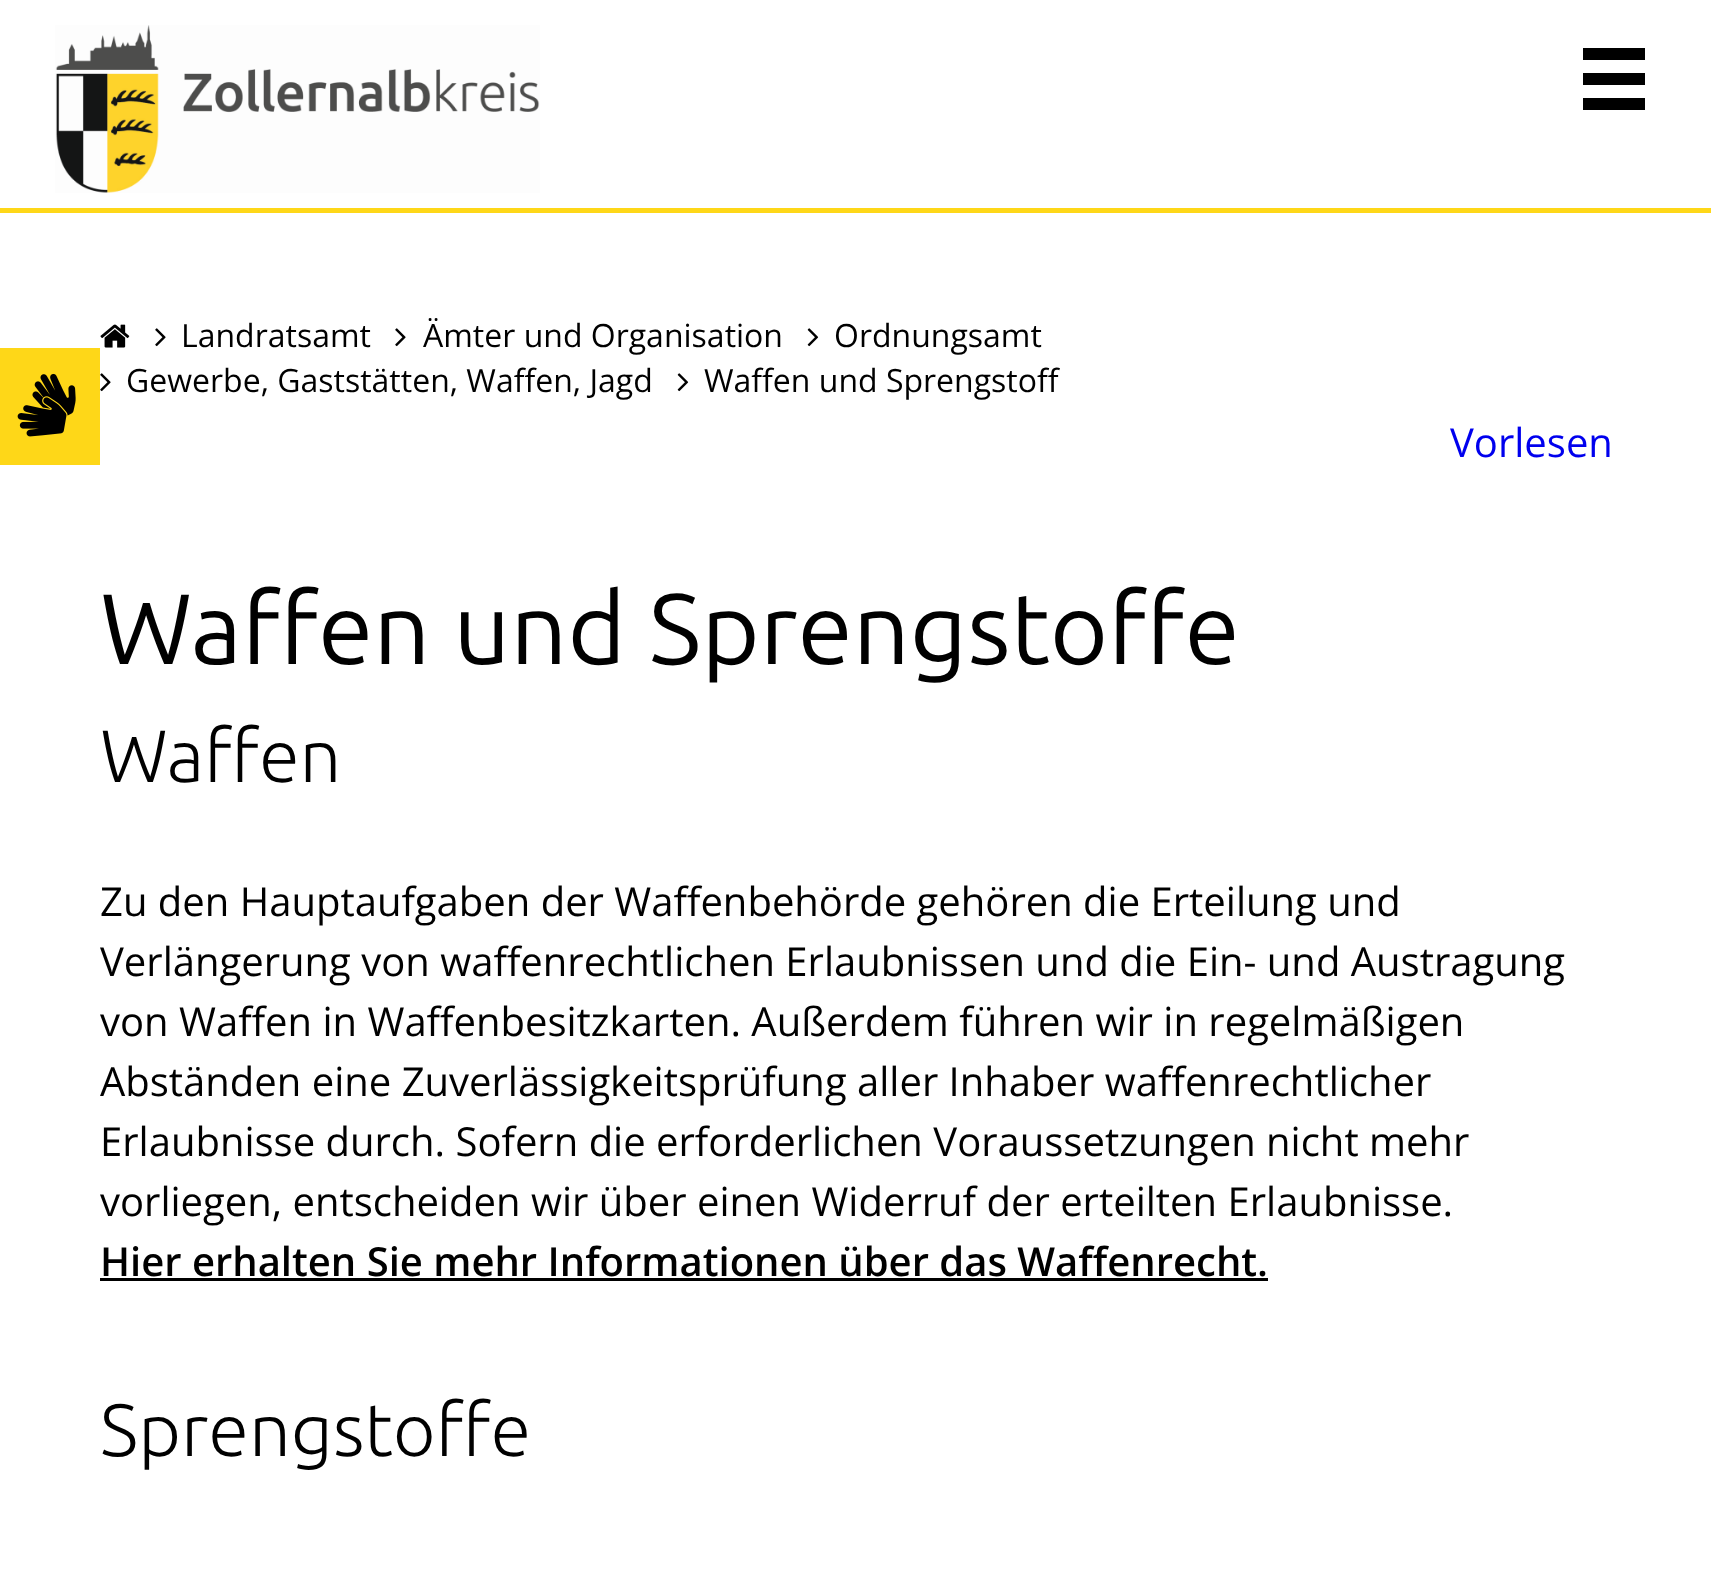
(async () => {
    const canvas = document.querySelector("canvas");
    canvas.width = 1711;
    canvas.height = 1579;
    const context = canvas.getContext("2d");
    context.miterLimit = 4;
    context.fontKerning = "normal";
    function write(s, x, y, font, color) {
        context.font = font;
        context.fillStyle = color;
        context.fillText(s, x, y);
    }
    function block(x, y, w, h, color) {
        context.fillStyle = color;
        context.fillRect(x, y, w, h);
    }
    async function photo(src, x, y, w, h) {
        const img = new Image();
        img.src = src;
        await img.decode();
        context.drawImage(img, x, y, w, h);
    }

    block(0, 0, 1711, 1579, "rgb(255, 255, 255)");
    block(0, 208, 1711, 5, "rgb(254, 215, 24)");
    await photo("media/1.png", 55, 25, 485, 168);
    block(1583, 48, 62, 12, "rgb(0, 0, 0)");
    block(1583, 73, 62, 12, "rgb(0, 0, 0)");
    block(1583, 98, 62, 12, "rgb(0, 0, 0)");
    block(0, 348, 100, 117, "rgb(254, 215, 24)");
    await photo("media/2.png", 17, 373, 59, 64);
    await photo("media/3.png", 100, 324, 30, 24);
    await photo("media/4.png", 155, 328, 11, 19);
    write("Landratsamt", 181, 347, "32px Open Sans", "rgb(0, 0, 0)");
    await photo("media/4.png", 395, 328, 11, 19);
    write("Ämter und Organisation", 423, 347, "32px Open Sans", "rgb(0, 0, 0)");
    await photo("media/5.png", 807, 328, 12, 19);
    write("Ordnungsamt", 834, 347, "32px Open Sans", "rgb(0, 0, 0)");
    await photo("media/4.png", 100, 373, 11, 19);
    write("Gewerbe, Gaststätten, Waffen, Jagd", 126, 392, "32px Open Sans", "rgb(0, 0, 0)");
    await photo("media/5.png", 677, 373, 12, 19);
    write("Waffen und Sprengstoff", 704, 392, "32px Open Sans", "rgb(0, 0, 0)");
    write("Vorlesen", 1450, 457, "40px Open Sans", "rgb(0, 0, 238)");
    write("Waffen und Sprengstoffe", 100, 664, "100px Ubuntu", "rgb(0, 0, 0)");
    write("Waffen", 100, 782, "300 74px Ubuntu", "rgb(0, 0, 0)");
    write("Zu den Hauptaufgaben der Waffenbehörde gehören die Erteilung und", 100, 916, "40px Open Sans", "rgb(0, 0, 0)");
    write("Verlängerung von waffenrechtlichen Erlaubnissen und die Ein- und Austragung", 100, 976, "40px Open Sans", "rgb(0, 0, 0)");
    write("von Waffen in Waffenbesitzkarten. Außerdem führen wir in regelmäßigen", 100, 1036, "40px Open Sans", "rgb(0, 0, 0)");
    write("Abständen eine Zuverlässigkeitsprüfung aller Inhaber waffenrechtlicher", 100, 1096, "40px Open Sans", "rgb(0, 0, 0)");
    write("Erlaubnisse durch. Sofern die erforderlichen Voraussetzungen nicht mehr", 100, 1156, "40px Open Sans", "rgb(0, 0, 0)");
    write("vorliegen, entscheiden wir über einen Widerruf der erteilten Erlaubnisse.", 100, 1216, "40px Open Sans", "rgb(0, 0, 0)");
    write("Hier erhalten Sie mehr Informationen über das Waffenrecht.", 100, 1276, "600 40px Open Sans", "rgb(0, 0, 0)");
    block(100, 1278, 1168, 3, "rgb(0, 0, 0)");
    write("Sprengstoffe", 100, 1456, "300 74px Ubuntu", "rgb(0, 0, 0)");
})();
